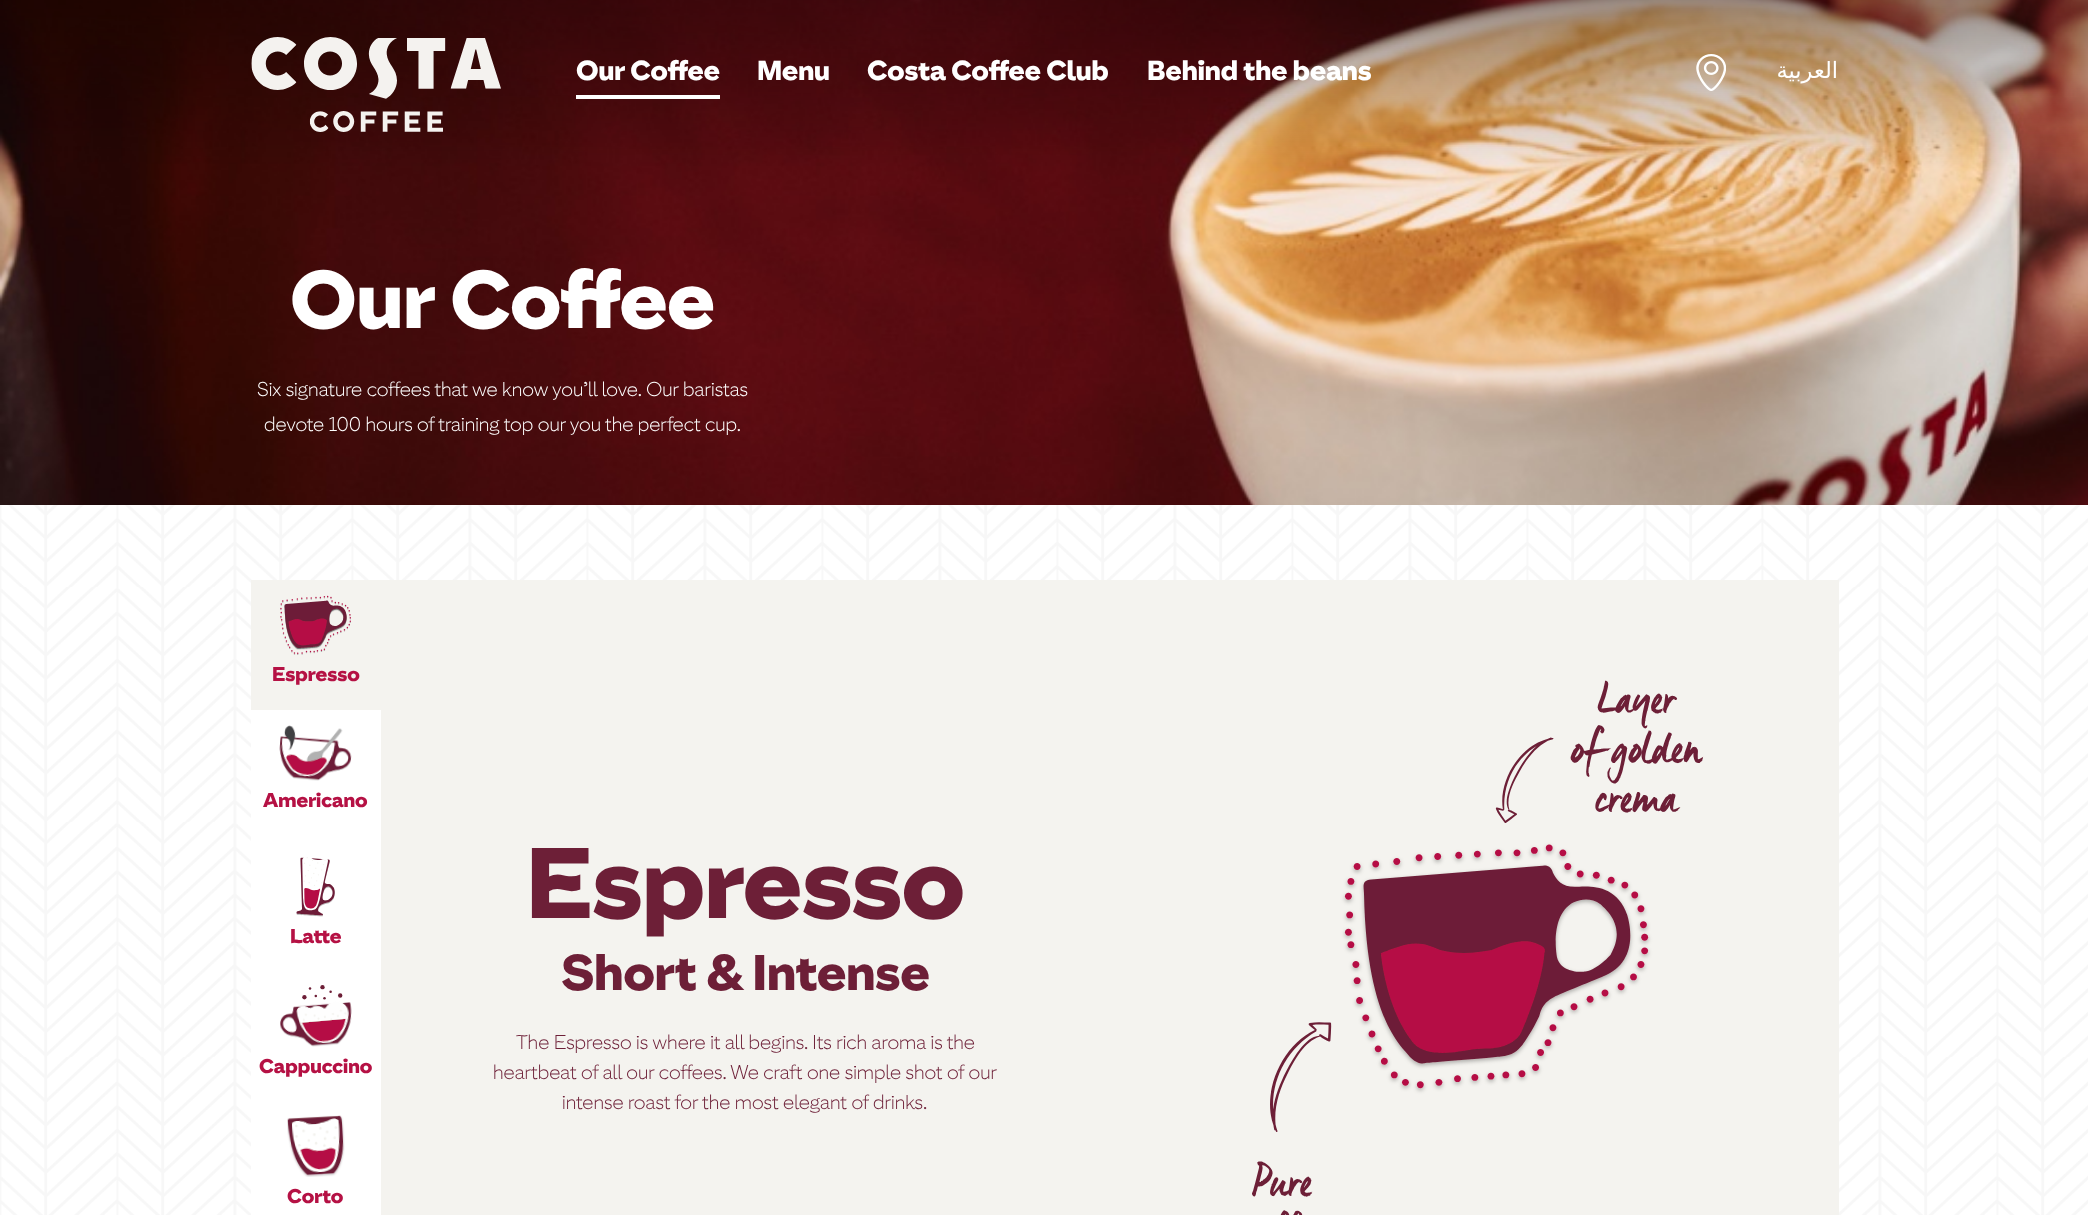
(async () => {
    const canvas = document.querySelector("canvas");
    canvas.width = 2088;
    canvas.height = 1215;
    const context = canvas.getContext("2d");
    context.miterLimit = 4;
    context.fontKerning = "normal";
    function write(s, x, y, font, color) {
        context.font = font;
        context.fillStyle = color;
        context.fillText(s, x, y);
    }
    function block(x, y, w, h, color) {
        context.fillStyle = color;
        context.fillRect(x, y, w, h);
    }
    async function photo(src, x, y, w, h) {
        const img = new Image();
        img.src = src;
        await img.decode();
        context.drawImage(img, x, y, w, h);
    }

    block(0, 0, 2088, 1215, "rgb(255, 255, 255)");
    await photo("media/1.png", 0, 505, 2088, 710);
    await photo("media/4.png", 0, 0, 2088, 505);
    await photo("media/2.png", 251, 37, 250, 95);
    block(576, 95, 144, 4, "rgb(255, 255, 255)");
    write("Our Coffee", 576, 80, "bold 27.5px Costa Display", "rgb(255, 255, 255)");
    write("Menu", 757, 80, "bold 27.5px Costa Display", "rgb(255, 255, 255)");
    write("Costa Coffee Club", 867, 80, "bold 27.5px Costa Display", "rgb(255, 255, 255)");
    write("Behind the beans", 1147, 80, "bold 27.5px Costa Display", "rgb(255, 255, 255)");
    await photo("media/3.png", 1696, 54, 30, 37);
    context.direction = "rtl";
    write("العربية", 1838, 78, "22.5px DejaVu Sans", "rgb(255, 255, 255)");
    context.direction = "ltr";
    write("Our Coffee", 290, 328, "bold 81.25px Costa Display", "rgb(255, 255, 255)");
    write("Six signature coffees that we know you’ll love. Our baristas", 257, 396, "300 20px Costa Display", "rgb(255, 255, 255)");
    write("devote 100 hours of training top our you the perfect cup.", 264, 431, "300 20px Costa Display", "rgb(255, 255, 255)");
    block(251, 580, 1588, 635, "rgb(244, 243, 239)");
    await photo("media/5.png", 280, 595, 71, 60);
    write("Espresso", 272, 681, "bold 20px Costa Display", "rgb(181, 17, 68)");
    block(251, 710, 130, 505, "rgb(255, 255, 255)");
    await photo("media/6.png", 279, 725, 73, 56);
    write("Americano", 263, 807, "bold 20px Costa Display", "rgb(181, 17, 68)");
    await photo("media/7.png", 296, 857, 39, 60);
    write("Latte", 290, 943, "bold 20px Costa Display", "rgb(181, 17, 68)");
    await photo("media/8.png", 280, 985, 72, 62);
    write("Cappuccino", 259, 1073, "bold 20px Costa Display", "rgb(181, 17, 68)");
    await photo("media/9.png", 287, 1115, 58, 62);
    write("Corto", 287, 1203, "bold 20px Costa Display", "rgb(181, 17, 68)");
    write("Espresso", 526, 918, "bold 100px Costa Display", "rgb(109, 31, 55)");
    write("Short & Intense", 561, 990, "bold 50px Costa Display", "rgb(109, 31, 55)");
    write("The Espresso is where it all begins. Its rich aroma is the", 516, 1049, "300 20px Costa Display", "rgb(109, 31, 55)");
    write("heartbeat of all our coffees. We craft one simple shot of our", 493, 1079, "300 20px Costa Display", "rgb(109, 31, 55)");
    write("intense roast for the most elegant of drinks.", 562, 1109, "300 20px Costa Display", "rgb(109, 31, 55)");
    await photo("media/10.png", 1252, 680, 452, 535);
})();
